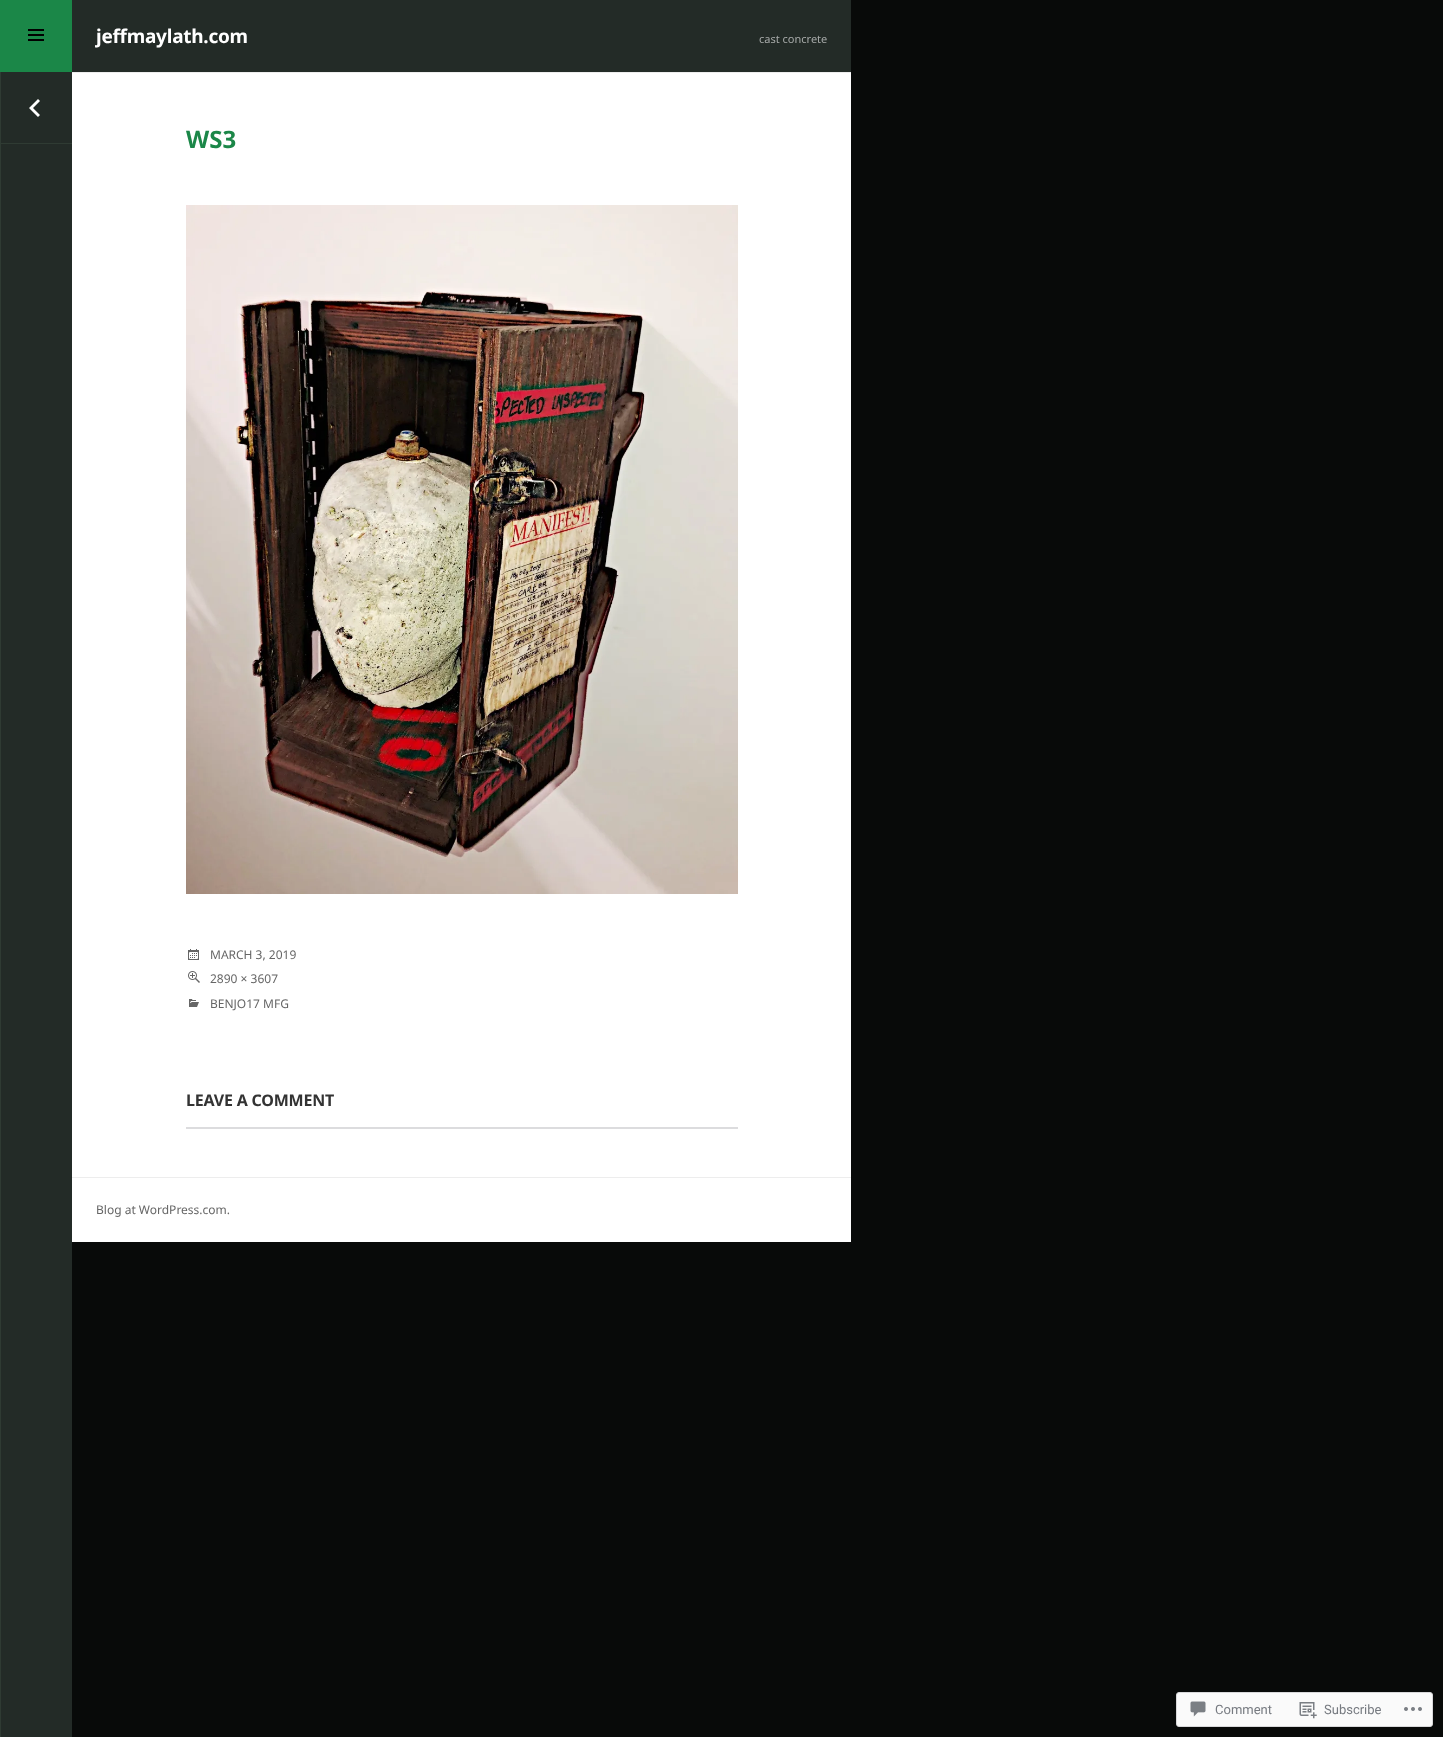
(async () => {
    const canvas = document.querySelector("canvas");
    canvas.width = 1443;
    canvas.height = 1737;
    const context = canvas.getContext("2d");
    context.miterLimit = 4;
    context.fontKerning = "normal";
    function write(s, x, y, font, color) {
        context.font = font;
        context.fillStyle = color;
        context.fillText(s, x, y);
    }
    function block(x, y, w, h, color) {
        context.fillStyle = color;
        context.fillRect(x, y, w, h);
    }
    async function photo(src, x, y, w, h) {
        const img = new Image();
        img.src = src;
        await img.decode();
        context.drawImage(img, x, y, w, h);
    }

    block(0, 0, 1443, 1737, "rgb(8, 10, 9)");
    block(1, 72, 71, 1665, "rgb(35, 43, 39)");
    block(0, 72, 1, 1665, "rgb(47, 59, 51)");
    block(72, 73, 779, 1169, "rgb(255, 255, 255)");
    block(72, 0, 779, 72, "rgb(35, 43, 39)");
    block(72, 72, 779, 1, "rgb(237, 237, 237)");
    context.letterSpacing = "-0.25px";
    write("jeffmaylath.com", 96, 43, "bold 19px Noto Sans", "rgb(255, 255, 255)");
    context.letterSpacing = "0px";
    write("cast concrete", 759, 43, "11px Noto Sans", "rgb(167, 170, 169)");
    block(0, 0, 72, 72, "rgb(27, 135, 72)");
    await photo("media/1.png", 28, 29, 16, 12);
    block(0, 143, 72, 1, "rgb(47, 59, 51)");
    context.fillStyle = "rgb(255, 255, 255)";
    context.beginPath();
    context.moveTo(40, 115);
    context.lineTo(38, 117);
    context.lineTo(29, 108);
    context.lineTo(38, 99);
    context.lineTo(40, 101);
    context.lineTo(33, 108);
    context.closePath();
    context.fill();
    write("WS3", 186, 148, "bold 24px Noto Sans", "rgb(27, 135, 72)");
    await photo("media/2.png", 186, 205, 552, 689);
    await photo("media/3.png", 188, 949, 11, 11);
    write("MARCH 3, 2019", 210, 959, "12px Noto Sans", "rgb(102, 102, 102)");
    await photo("media/4.png", 188, 971, 12, 12);
    write("2890 × 3607", 210, 983, "12px Noto Sans", "rgb(102, 102, 102)");
    await photo("media/5.png", 189, 999, 10, 8);
    write("BENJO17 MFG", 210, 1008, "12px Noto Sans", "rgb(102, 102, 102)");
    context.letterSpacing = "-0.2px";
    write("LEAVE A COMMENT", 186, 1106, "bold 16px Noto Sans", "rgb(51, 51, 51)");
    block(186, 1127, 552, 2, "rgb(220, 220, 222)");
    block(72, 1177, 779, 1, "rgb(237, 237, 237)");
    context.letterSpacing = "0px";
    write("Blog at WordPress.com.", 96, 1214, "12px Noto Sans", "rgb(102, 102, 102)");
    context.fillStyle = "rgb(250, 250, 250)";
    context.beginPath();
    context.roundRect(1176.5, 1692.5, 256, 34, 2.5);
    context.fill();
    context.strokeStyle = "rgb(216, 216, 218)";
    context.stroke();
    await photo("media/6.png", 1190, 1701, 16, 16);
    write("Comment", 1215, 1714, "13px Roboto", "rgb(118, 122, 128)");
    await photo("media/7.png", 1299, 1702, 18, 17);
    write("Subscribe", 1324, 1714, "13px Roboto", "rgb(118, 122, 128)");
    await photo("media/8.png", 1404, 1707, 18, 4);
})();
